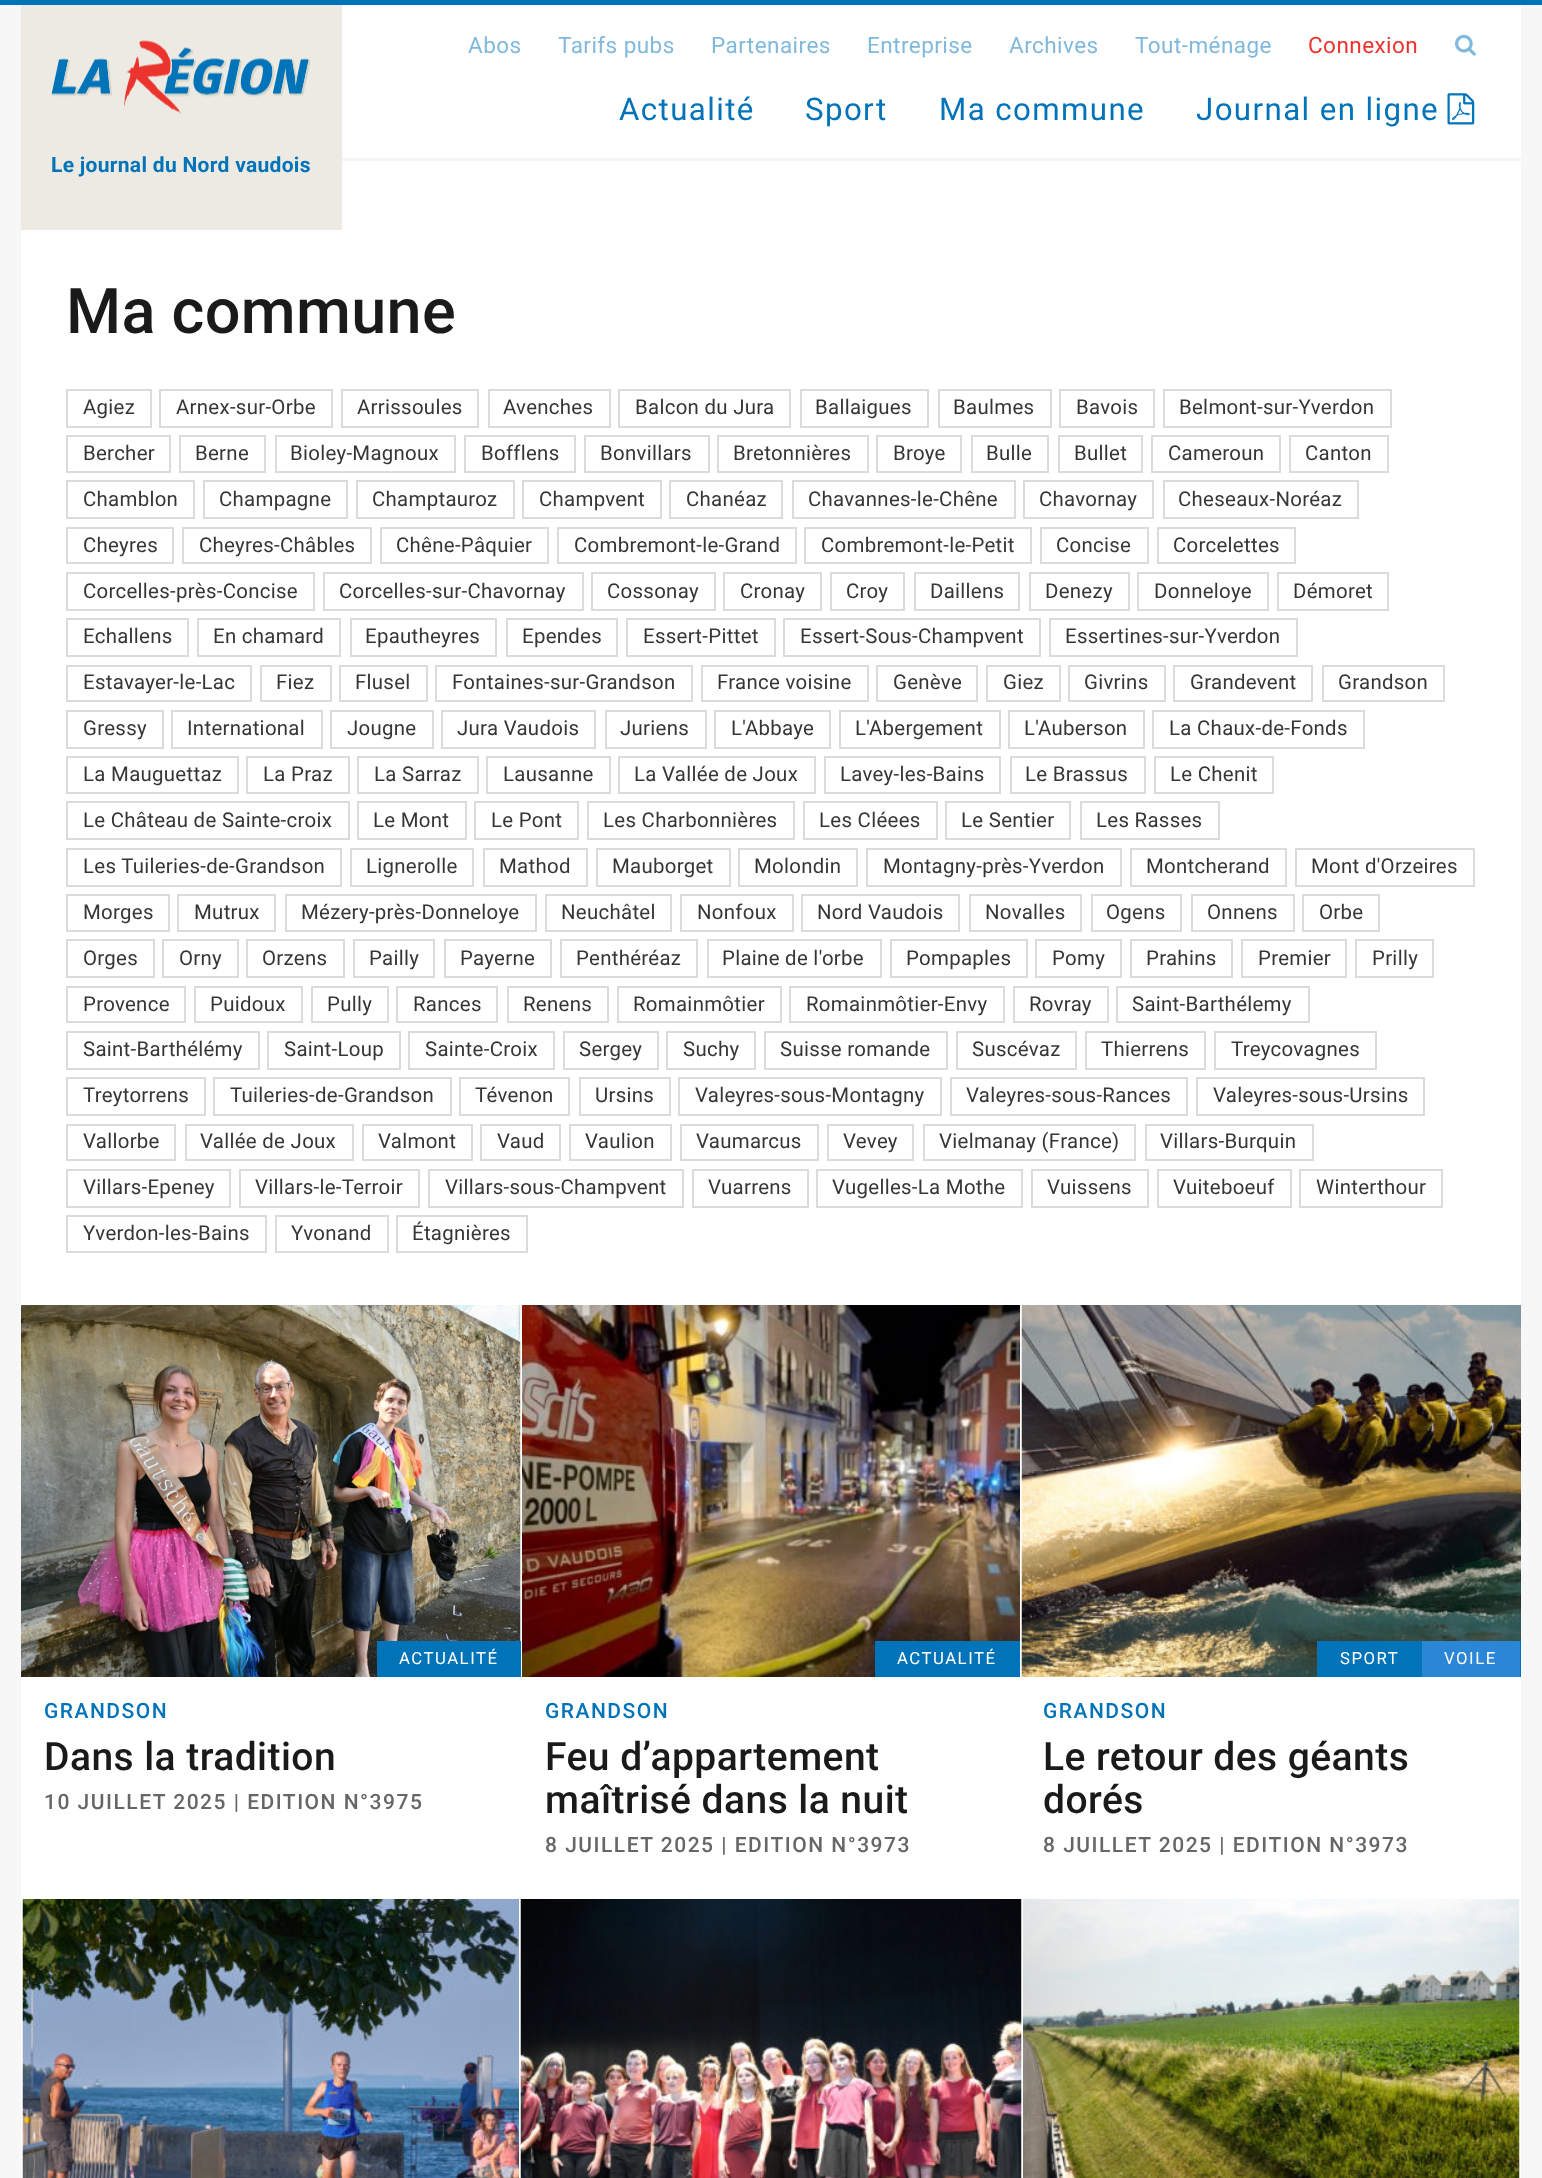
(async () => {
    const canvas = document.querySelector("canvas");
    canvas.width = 1542;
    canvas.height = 2178;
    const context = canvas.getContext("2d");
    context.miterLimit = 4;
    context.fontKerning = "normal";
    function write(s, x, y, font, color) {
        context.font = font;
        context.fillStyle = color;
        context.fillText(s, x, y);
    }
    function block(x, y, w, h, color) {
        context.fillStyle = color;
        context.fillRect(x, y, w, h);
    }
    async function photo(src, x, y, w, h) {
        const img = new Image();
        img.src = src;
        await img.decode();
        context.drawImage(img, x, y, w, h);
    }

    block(0, 0, 1542, 2178, "rgb(247, 247, 247)");
    block(0, 0, 1542, 5, "rgb(0, 115, 185)");
    block(21, 5, 1500, 2173, "rgb(255, 255, 255)");
    block(342, 158, 1179, 3, "rgb(245, 245, 245)");
    context.letterSpacing = "0.45px";
    write("Abos", 468, 53, "22.5px Roboto", "rgb(128, 185, 220)");
    write("Tarifs pubs", 558, 53, "22.5px Roboto", "rgb(128, 185, 220)");
    write("Partenaires", 711, 53, "22.5px Roboto", "rgb(128, 185, 220)");
    write("Entreprise", 867, 53, "22.5px Roboto", "rgb(128, 185, 220)");
    write("Archives", 1009, 53, "22.5px Roboto", "rgb(128, 185, 220)");
    write("Tout-ménage", 1135, 53, "22.5px Roboto", "rgb(128, 185, 220)");
    write("Connexion", 1308, 53, "22.5px Roboto", "rgb(236, 52, 46)");
    await photo("media/1.png", 1455, 34, 21, 22);
    context.letterSpacing = "1.4px";
    write("Actualité", 619, 120, "31.25px Roboto", "rgb(0, 115, 185)");
    write("Sport", 805, 120, "31.25px Roboto", "rgb(0, 115, 185)");
    write("Ma commune", 939, 120, "31.25px Roboto", "rgb(0, 115, 185)");
    write("Journal en ligne", 1196, 120, "31.25px Roboto", "rgb(0, 115, 185)");
    await photo("media/2.png", 1447, 93, 28, 32);
    block(21, 5, 321, 225, "rgb(236, 234, 226)");
    await photo("media/3.png", 51, 40, 260, 75);
    context.letterSpacing = "0.3px";
    write("Le journal du Nord vaudois", 51, 172, "bold 21px Roboto", "rgb(0, 115, 185)");
    write("Ma commune", 66, 333, "500 63px Roboto", "rgb(26, 26, 26)");
    context.strokeStyle = "rgb(219, 219, 219)";
    context.lineWidth = 2;
    context.strokeRect(67, 390, 84, 37);
    write("Agiez", 83, 414, "20.4px Roboto", "rgb(54, 54, 54)");
    context.strokeRect(160, 390, 172, 37);
    write("Arnex-sur-Orbe", 176, 414, "20.4px Roboto", "rgb(54, 54, 54)");
    context.strokeRect(342, 390, 136, 37);
    write("Arrissoules", 357, 414, "20.4px Roboto", "rgb(54, 54, 54)");
    context.strokeRect(489, 390, 121, 37);
    write("Avenches", 503, 414, "20.4px Roboto", "rgb(54, 54, 54)");
    context.strokeRect(619, 390, 171, 37);
    write("Balcon du Jura", 635, 414, "20.4px Roboto", "rgb(54, 54, 54)");
    context.strokeRect(801, 390, 127, 37);
    write("Ballaigues", 815, 414, "20.4px Roboto", "rgb(54, 54, 54)");
    context.strokeRect(939, 390, 112, 37);
    write("Baulmes", 953, 414, "20.4px Roboto", "rgb(54, 54, 54)");
    context.strokeRect(1060, 390, 94, 37);
    write("Bavois", 1076, 414, "20.4px Roboto", "rgb(54, 54, 54)");
    context.strokeRect(1164, 390, 227, 37);
    write("Belmont-sur-Yverdon", 1179, 414, "20.4px Roboto", "rgb(54, 54, 54)");
    context.strokeRect(67, 436, 103, 36);
    write("Bercher", 83, 460, "20.4px Roboto", "rgb(54, 54, 54)");
    context.strokeRect(180, 436, 85, 36);
    write("Berne", 195, 460, "20.4px Roboto", "rgb(54, 54, 54)");
    context.strokeRect(276, 436, 179, 36);
    write("Bioley-Magnoux", 290, 460, "20.4px Roboto", "rgb(54, 54, 54)");
    context.strokeRect(465, 436, 110, 36);
    write("Bofflens", 481, 460, "20.4px Roboto", "rgb(54, 54, 54)");
    context.strokeRect(585, 436, 124, 36);
    write("Bonvillars", 600, 460, "20.4px Roboto", "rgb(54, 54, 54)");
    context.strokeRect(718, 436, 150, 36);
    write("Bretonnières", 733, 460, "20.4px Roboto", "rgb(54, 54, 54)");
    context.strokeRect(877, 436, 84, 36);
    write("Broye", 893, 460, "20.4px Roboto", "rgb(54, 54, 54)");
    context.strokeRect(972, 436, 76, 36);
    write("Bulle", 986, 460, "20.4px Roboto", "rgb(54, 54, 54)");
    context.strokeRect(1059, 436, 83, 36);
    write("Bullet", 1074, 460, "20.4px Roboto", "rgb(54, 54, 54)");
    context.strokeRect(1152, 436, 128, 36);
    write("Cameroun", 1168, 460, "20.4px Roboto", "rgb(54, 54, 54)");
    context.strokeRect(1290, 436, 98, 36);
    write("Canton", 1305, 460, "20.4px Roboto", "rgb(54, 54, 54)");
    context.strokeRect(67, 481, 127, 37);
    write("Chamblon", 83, 506, "20.4px Roboto", "rgb(54, 54, 54)");
    context.strokeRect(204, 481, 143, 37);
    write("Champagne", 219, 506, "20.4px Roboto", "rgb(54, 54, 54)");
    context.strokeRect(357, 481, 157, 37);
    write("Champtauroz", 372, 506, "20.4px Roboto", "rgb(54, 54, 54)");
    context.strokeRect(523, 481, 138, 37);
    write("Champvent", 539, 506, "20.4px Roboto", "rgb(54, 54, 54)");
    context.strokeRect(670, 481, 112, 37);
    write("Chanéaz", 686, 506, "20.4px Roboto", "rgb(54, 54, 54)");
    context.strokeRect(793, 481, 222, 37);
    write("Chavannes-le-Chêne", 808, 506, "20.4px Roboto", "rgb(54, 54, 54)");
    context.strokeRect(1024, 481, 129, 37);
    write("Chavornay", 1039, 506, "20.4px Roboto", "rgb(54, 54, 54)");
    context.strokeRect(1164, 481, 194, 37);
    write("Cheseaux-Noréaz", 1178, 506, "20.4px Roboto", "rgb(54, 54, 54)");
    context.strokeRect(67, 528, 106, 35);
    write("Cheyres", 83, 552, "20.4px Roboto", "rgb(54, 54, 54)");
    context.strokeRect(183, 528, 188, 35);
    write("Cheyres-Châbles", 199, 552, "20.4px Roboto", "rgb(54, 54, 54)");
    context.strokeRect(381, 528, 167, 35);
    write("Chêne-Pâquier", 396, 552, "20.4px Roboto", "rgb(54, 54, 54)");
    context.strokeRect(558, 528, 238, 35);
    write("Combremont-le-Grand", 574, 552, "20.4px Roboto", "rgb(54, 54, 54)");
    context.strokeRect(805, 528, 226, 35);
    write("Combremont-le-Petit", 821, 552, "20.4px Roboto", "rgb(54, 54, 54)");
    context.strokeRect(1041, 528, 107, 35);
    write("Concise", 1056, 552, "20.4px Roboto", "rgb(54, 54, 54)");
    context.strokeRect(1158, 528, 137, 35);
    write("Corcelettes", 1173, 552, "20.4px Roboto", "rgb(54, 54, 54)");
    context.strokeRect(67, 573, 247, 37);
    write("Corcelles-près-Concise", 83, 598, "20.4px Roboto", "rgb(54, 54, 54)");
    context.strokeRect(324, 573, 259, 37);
    write("Corcelles-sur-Chavornay", 339, 598, "20.4px Roboto", "rgb(54, 54, 54)");
    context.strokeRect(592, 573, 123, 37);
    write("Cossonay", 607, 598, "20.4px Roboto", "rgb(54, 54, 54)");
    context.strokeRect(724, 573, 97, 37);
    write("Cronay", 740, 598, "20.4px Roboto", "rgb(54, 54, 54)");
    context.strokeRect(831, 573, 73, 37);
    write("Croy", 846, 598, "20.4px Roboto", "rgb(54, 54, 54)");
    context.strokeRect(915, 573, 104, 37);
    write("Daillens", 930, 598, "20.4px Roboto", "rgb(54, 54, 54)");
    context.strokeRect(1030, 573, 99, 37);
    write("Denezy", 1045, 598, "20.4px Roboto", "rgb(54, 54, 54)");
    context.strokeRect(1138, 573, 130, 37);
    write("Donneloye", 1154, 598, "20.4px Roboto", "rgb(54, 54, 54)");
    context.strokeRect(1278, 573, 110, 37);
    write("Démoret", 1293, 598, "20.4px Roboto", "rgb(54, 54, 54)");
    context.strokeRect(67, 619, 121, 37);
    write("Echallens", 83, 643, "20.4px Roboto", "rgb(54, 54, 54)");
    context.strokeRect(198, 619, 142, 37);
    write("En chamard", 213, 643, "20.4px Roboto", "rgb(54, 54, 54)");
    context.strokeRect(351, 619, 145, 37);
    write("Epautheyres", 365, 643, "20.4px Roboto", "rgb(54, 54, 54)");
    context.strokeRect(507, 619, 110, 37);
    write("Ependes", 522, 643, "20.4px Roboto", "rgb(54, 54, 54)");
    context.strokeRect(627, 619, 148, 37);
    write("Essert-Pittet", 643, 643, "20.4px Roboto", "rgb(54, 54, 54)");
    context.strokeRect(784, 619, 256, 37);
    write("Essert-Sous-Champvent", 800, 643, "20.4px Roboto", "rgb(54, 54, 54)");
    context.strokeRect(1050, 619, 247, 37);
    write("Essertines-sur-Yverdon", 1065, 643, "20.4px Roboto", "rgb(54, 54, 54)");
    context.strokeRect(67, 666, 184, 35);
    write("Estavayer-le-Lac", 83, 689, "20.4px Roboto", "rgb(54, 54, 54)");
    context.strokeRect(261, 666, 70, 35);
    write("Fiez", 276, 689, "20.4px Roboto", "rgb(54, 54, 54)");
    context.strokeRect(340, 666, 87, 35);
    write("Flusel", 355, 689, "20.4px Roboto", "rgb(54, 54, 54)");
    context.strokeRect(436, 666, 256, 35);
    write("Fontaines-sur-Grandson", 452, 689, "20.4px Roboto", "rgb(54, 54, 54)");
    context.strokeRect(702, 666, 166, 35);
    write("France voisine", 717, 689, "20.4px Roboto", "rgb(54, 54, 54)");
    context.strokeRect(877, 666, 100, 35);
    write("Genève", 893, 689, "20.4px Roboto", "rgb(54, 54, 54)");
    context.strokeRect(987, 666, 73, 35);
    write("Giez", 1003, 689, "20.4px Roboto", "rgb(54, 54, 54)");
    context.strokeRect(1069, 666, 96, 35);
    write("Givrins", 1084, 689, "20.4px Roboto", "rgb(54, 54, 54)");
    context.strokeRect(1174, 666, 138, 35);
    write("Grandevent", 1190, 689, "20.4px Roboto", "rgb(54, 54, 54)");
    context.strokeRect(1323, 666, 121, 35);
    write("Grandson", 1338, 689, "20.4px Roboto", "rgb(54, 54, 54)");
    context.strokeRect(67, 711, 96, 37);
    write("Gressy", 83, 735, "20.4px Roboto", "rgb(54, 54, 54)");
    context.strokeRect(172, 711, 150, 37);
    write("International", 187, 735, "20.4px Roboto", "rgb(54, 54, 54)");
    context.strokeRect(331, 711, 102, 37);
    write("Jougne", 347, 735, "20.4px Roboto", "rgb(54, 54, 54)");
    context.strokeRect(442, 711, 153, 37);
    write("Jura Vaudois", 457, 735, "20.4px Roboto", "rgb(54, 54, 54)");
    context.strokeRect(606, 711, 100, 37);
    write("Juriens", 620, 735, "20.4px Roboto", "rgb(54, 54, 54)");
    context.strokeRect(715, 711, 115, 37);
    write("L'Abbaye", 731, 735, "20.4px Roboto", "rgb(54, 54, 54)");
    context.strokeRect(840, 711, 160, 37);
    write("L'Abergement", 855, 735, "20.4px Roboto", "rgb(54, 54, 54)");
    context.strokeRect(1009, 711, 135, 37);
    write("L'Auberson", 1024, 735, "20.4px Roboto", "rgb(54, 54, 54)");
    context.strokeRect(1153, 711, 211, 37);
    write("La Chaux-de-Fonds", 1169, 735, "20.4px Roboto", "rgb(54, 54, 54)");
    context.strokeRect(67, 757, 171, 36);
    write("La Mauguettaz", 83, 781, "20.4px Roboto", "rgb(54, 54, 54)");
    context.strokeRect(247, 757, 102, 36);
    write("La Praz", 263, 781, "20.4px Roboto", "rgb(54, 54, 54)");
    context.strokeRect(358, 757, 120, 36);
    write("La Sarraz", 374, 781, "20.4px Roboto", "rgb(54, 54, 54)");
    context.strokeRect(487, 757, 123, 36);
    write("Lausanne", 503, 781, "20.4px Roboto", "rgb(54, 54, 54)");
    context.strokeRect(619, 757, 196, 36);
    write("La Vallée de Joux", 634, 781, "20.4px Roboto", "rgb(54, 54, 54)");
    context.strokeRect(825, 757, 175, 36);
    write("Lavey-les-Bains", 840, 781, "20.4px Roboto", "rgb(54, 54, 54)");
    context.strokeRect(1011, 757, 134, 36);
    write("Le Brassus", 1025, 781, "20.4px Roboto", "rgb(54, 54, 54)");
    context.strokeRect(1155, 757, 118, 36);
    write("Le Chenit", 1170, 781, "20.4px Roboto", "rgb(54, 54, 54)");
    context.strokeRect(67, 802, 282, 37);
    write("Le Château de Sainte-croix", 83, 827, "20.4px Roboto", "rgb(54, 54, 54)");
    context.strokeRect(358, 802, 108, 37);
    write("Le Mont", 373, 827, "20.4px Roboto", "rgb(54, 54, 54)");
    context.strokeRect(475, 802, 103, 37);
    write("Le Pont", 491, 827, "20.4px Roboto", "rgb(54, 54, 54)");
    context.strokeRect(588, 802, 206, 37);
    write("Les Charbonnières", 603, 827, "20.4px Roboto", "rgb(54, 54, 54)");
    context.strokeRect(804, 802, 133, 37);
    write("Les Cléees", 819, 827, "20.4px Roboto", "rgb(54, 54, 54)");
    context.strokeRect(946, 802, 124, 37);
    write("Le Sentier", 961, 827, "20.4px Roboto", "rgb(54, 54, 54)");
    context.strokeRect(1081, 802, 138, 37);
    write("Les Rasses", 1096, 827, "20.4px Roboto", "rgb(54, 54, 54)");
    context.strokeRect(67, 849, 274, 37);
    write("Les Tuileries-de-Grandson", 83, 873, "20.4px Roboto", "rgb(54, 54, 54)");
    context.strokeRect(351, 849, 122, 37);
    write("Lignerolle", 366, 873, "20.4px Roboto", "rgb(54, 54, 54)");
    context.strokeRect(484, 849, 103, 37);
    write("Mathod", 499, 873, "20.4px Roboto", "rgb(54, 54, 54)");
    context.strokeRect(597, 849, 133, 37);
    write("Mauborget", 612, 873, "20.4px Roboto", "rgb(54, 54, 54)");
    context.strokeRect(739, 849, 118, 37);
    write("Molondin", 754, 873, "20.4px Roboto", "rgb(54, 54, 54)");
    context.strokeRect(867, 849, 254, 37);
    write("Montagny-près-Yverdon", 883, 873, "20.4px Roboto", "rgb(54, 54, 54)");
    context.strokeRect(1131, 849, 155, 37);
    write("Montcherand", 1146, 873, "20.4px Roboto", "rgb(54, 54, 54)");
    context.strokeRect(1296, 849, 178, 37);
    write("Mont d'Orzeires", 1311, 873, "20.4px Roboto", "rgb(54, 54, 54)");
    context.strokeRect(67, 895, 102, 36);
    write("Morges", 83, 919, "20.4px Roboto", "rgb(54, 54, 54)");
    context.strokeRect(178, 895, 97, 36);
    write("Mutrux", 194, 919, "20.4px Roboto", "rgb(54, 54, 54)");
    context.strokeRect(286, 895, 250, 36);
    write("Mézery-près-Donneloye", 301, 919, "20.4px Roboto", "rgb(54, 54, 54)");
    context.strokeRect(546, 895, 125, 36);
    write("Neuchâtel", 561, 919, "20.4px Roboto", "rgb(54, 54, 54)");
    context.strokeRect(681, 895, 112, 36);
    write("Nonfoux", 697, 919, "20.4px Roboto", "rgb(54, 54, 54)");
    context.strokeRect(802, 895, 157, 36);
    write("Nord Vaudois", 817, 919, "20.4px Roboto", "rgb(54, 54, 54)");
    context.strokeRect(970, 895, 111, 36);
    write("Novalles", 985, 919, "20.4px Roboto", "rgb(54, 54, 54)");
    context.strokeRect(1092, 895, 89, 36);
    write("Ogens", 1106, 919, "20.4px Roboto", "rgb(54, 54, 54)");
    context.strokeRect(1192, 895, 102, 36);
    write("Onnens", 1207, 919, "20.4px Roboto", "rgb(54, 54, 54)");
    context.strokeRect(1303, 895, 76, 36);
    write("Orbe", 1319, 919, "20.4px Roboto", "rgb(54, 54, 54)");
    context.strokeRect(67, 940, 87, 37);
    write("Orges", 83, 965, "20.4px Roboto", "rgb(54, 54, 54)");
    context.strokeRect(163, 940, 75, 37);
    write("Orny", 179, 965, "20.4px Roboto", "rgb(54, 54, 54)");
    context.strokeRect(247, 940, 97, 37);
    write("Orzens", 262, 965, "20.4px Roboto", "rgb(54, 54, 54)");
    context.strokeRect(354, 940, 80, 37);
    write("Pailly", 369, 965, "20.4px Roboto", "rgb(54, 54, 54)");
    context.strokeRect(445, 940, 106, 37);
    write("Payerne", 460, 965, "20.4px Roboto", "rgb(54, 54, 54)");
    context.strokeRect(561, 940, 136, 37);
    write("Penthéréaz", 576, 965, "20.4px Roboto", "rgb(54, 54, 54)");
    context.strokeRect(708, 940, 173, 37);
    write("Plaine de l'orbe", 722, 965, "20.4px Roboto", "rgb(54, 54, 54)");
    context.strokeRect(891, 940, 136, 37);
    write("Pompaples", 906, 965, "20.4px Roboto", "rgb(54, 54, 54)");
    context.strokeRect(1036, 940, 85, 37);
    write("Pomy", 1052, 965, "20.4px Roboto", "rgb(54, 54, 54)");
    context.strokeRect(1131, 940, 101, 37);
    write("Prahins", 1146, 965, "20.4px Roboto", "rgb(54, 54, 54)");
    context.strokeRect(1242, 940, 104, 37);
    write("Premier", 1258, 965, "20.4px Roboto", "rgb(54, 54, 54)");
    context.strokeRect(1356, 940, 77, 37);
    write("Prilly", 1372, 965, "20.4px Roboto", "rgb(54, 54, 54)");
    context.strokeRect(67, 987, 118, 35);
    write("Provence", 83, 1011, "20.4px Roboto", "rgb(54, 54, 54)");
    context.strokeRect(195, 987, 107, 35);
    write("Puidoux", 210, 1011, "20.4px Roboto", "rgb(54, 54, 54)");
    context.strokeRect(312, 987, 76, 35);
    write("Pully", 327, 1011, "20.4px Roboto", "rgb(54, 54, 54)");
    context.strokeRect(397, 987, 100, 35);
    write("Rances", 413, 1011, "20.4px Roboto", "rgb(54, 54, 54)");
    context.strokeRect(508, 987, 100, 35);
    write("Renens", 523, 1011, "20.4px Roboto", "rgb(54, 54, 54)");
    context.strokeRect(618, 987, 163, 35);
    write("Romainmôtier", 633, 1011, "20.4px Roboto", "rgb(54, 54, 54)");
    context.strokeRect(790, 987, 214, 35);
    write("Romainmôtier-Envy", 806, 1011, "20.4px Roboto", "rgb(54, 54, 54)");
    context.strokeRect(1014, 987, 94, 35);
    write("Rovray", 1029, 1011, "20.4px Roboto", "rgb(54, 54, 54)");
    context.strokeRect(1117, 987, 192, 35);
    write("Saint-Barthélemy", 1132, 1011, "20.4px Roboto", "rgb(54, 54, 54)");
    context.strokeRect(67, 1032, 192, 37);
    write("Saint-Barthélémy", 83, 1056, "20.4px Roboto", "rgb(54, 54, 54)");
    context.strokeRect(268, 1032, 132, 37);
    write("Saint-Loup", 284, 1056, "20.4px Roboto", "rgb(54, 54, 54)");
    context.strokeRect(409, 1032, 145, 37);
    write("Sainte-Croix", 425, 1056, "20.4px Roboto", "rgb(54, 54, 54)");
    context.strokeRect(564, 1032, 94, 37);
    write("Sergey", 579, 1056, "20.4px Roboto", "rgb(54, 54, 54)");
    context.strokeRect(667, 1032, 88, 37);
    write("Suchy", 683, 1056, "20.4px Roboto", "rgb(54, 54, 54)");
    context.strokeRect(765, 1032, 182, 37);
    write("Suisse romande", 780, 1056, "20.4px Roboto", "rgb(54, 54, 54)");
    context.strokeRect(957, 1032, 119, 37);
    write("Suscévaz", 972, 1056, "20.4px Roboto", "rgb(54, 54, 54)");
    context.strokeRect(1086, 1032, 119, 37);
    write("Thierrens", 1101, 1056, "20.4px Roboto", "rgb(54, 54, 54)");
    context.strokeRect(1215, 1032, 161, 37);
    write("Treycovagnes", 1231, 1056, "20.4px Roboto", "rgb(54, 54, 54)");
    context.strokeRect(67, 1078, 138, 37);
    write("Treytorrens", 83, 1102, "20.4px Roboto", "rgb(54, 54, 54)");
    context.strokeRect(214, 1078, 237, 37);
    write("Tuileries-de-Grandson", 230, 1102, "20.4px Roboto", "rgb(54, 54, 54)");
    context.strokeRect(460, 1078, 109, 37);
    write("Tévenon", 475, 1102, "20.4px Roboto", "rgb(54, 54, 54)");
    context.strokeRect(580, 1078, 90, 37);
    write("Ursins", 595, 1102, "20.4px Roboto", "rgb(54, 54, 54)");
    context.strokeRect(679, 1078, 262, 37);
    write("Valeyres-sous-Montagny", 695, 1102, "20.4px Roboto", "rgb(54, 54, 54)");
    context.strokeRect(951, 1078, 236, 37);
    write("Valeyres-sous-Rances", 966, 1102, "20.4px Roboto", "rgb(54, 54, 54)");
    context.strokeRect(1197, 1078, 227, 37);
    write("Valeyres-sous-Ursins", 1213, 1102, "20.4px Roboto", "rgb(54, 54, 54)");
    context.strokeRect(67, 1125, 108, 35);
    write("Vallorbe", 83, 1148, "20.4px Roboto", "rgb(54, 54, 54)");
    context.strokeRect(186, 1125, 167, 35);
    write("Vallée de Joux", 200, 1148, "20.4px Roboto", "rgb(54, 54, 54)");
    context.strokeRect(363, 1125, 109, 35);
    write("Valmont", 378, 1148, "20.4px Roboto", "rgb(54, 54, 54)");
    context.strokeRect(481, 1125, 79, 35);
    write("Vaud", 497, 1148, "20.4px Roboto", "rgb(54, 54, 54)");
    context.strokeRect(570, 1125, 101, 35);
    write("Vaulion", 585, 1148, "20.4px Roboto", "rgb(54, 54, 54)");
    context.strokeRect(681, 1125, 137, 35);
    write("Vaumarcus", 696, 1148, "20.4px Roboto", "rgb(54, 54, 54)");
    context.strokeRect(828, 1125, 85, 35);
    write("Vevey", 843, 1148, "20.4px Roboto", "rgb(54, 54, 54)");
    context.strokeRect(924, 1125, 211, 35);
    write("Vielmanay (France)", 939, 1148, "20.4px Roboto", "rgb(54, 54, 54)");
    context.strokeRect(1146, 1125, 167, 35);
    write("Villars-Burquin", 1160, 1148, "20.4px Roboto", "rgb(54, 54, 54)");
    context.strokeRect(67, 1170, 163, 37);
    write("Villars-Epeney", 83, 1194, "20.4px Roboto", "rgb(54, 54, 54)");
    context.strokeRect(240, 1170, 179, 37);
    write("Villars-le-Terroir", 255, 1194, "20.4px Roboto", "rgb(54, 54, 54)");
    context.strokeRect(429, 1170, 254, 37);
    write("Villars-sous-Champvent", 445, 1194, "20.4px Roboto", "rgb(54, 54, 54)");
    context.strokeRect(693, 1170, 115, 37);
    write("Vuarrens", 708, 1194, "20.4px Roboto", "rgb(54, 54, 54)");
    context.strokeRect(817, 1170, 205, 37);
    write("Vugelles-La Mothe", 832, 1194, "20.4px Roboto", "rgb(54, 54, 54)");
    context.strokeRect(1032, 1170, 116, 37);
    write("Vuissens", 1047, 1194, "20.4px Roboto", "rgb(54, 54, 54)");
    context.strokeRect(1158, 1170, 133, 37);
    write("Vuiteboeuf", 1173, 1194, "20.4px Roboto", "rgb(54, 54, 54)");
    context.strokeRect(1300, 1170, 142, 37);
    write("Winterthour", 1316, 1194, "20.4px Roboto", "rgb(54, 54, 54)");
    context.strokeRect(67, 1216, 199, 36);
    write("Yverdon-les-Bains", 83, 1240, "20.4px Roboto", "rgb(54, 54, 54)");
    context.strokeRect(276, 1216, 112, 36);
    write("Yvonand", 291, 1240, "20.4px Roboto", "rgb(54, 54, 54)");
    context.strokeRect(397, 1216, 130, 36);
    write("Étagnières", 412, 1240, "20.4px Roboto", "rgb(54, 54, 54)");
    await photo("media/4.png", 21, 1305, 500, 372);
    block(377, 1641, 144, 36, "rgb(0, 115, 185)");
    context.letterSpacing = "1.5px";
    write("ACTUALITÉ", 399, 1664, "16.75px Roboto", "rgb(255, 255, 255)");
    write("GRANDSON", 44, 1718, "500 21px Roboto", "rgb(0, 115, 185)");
    context.letterSpacing = "0.45px";
    write("Dans la tradition", 44, 1770, "500 39px Roboto", "rgb(26, 26, 26)");
    context.letterSpacing = "1.5px";
    write("10 JUILLET 2025 | EDITION N°3975", 44, 1809, "500 21px Roboto", "rgb(102, 102, 102)");
    await photo("media/5.png", 522, 1305, 498, 372);
    block(875, 1641, 145, 36, "rgb(0, 115, 185)");
    write("ACTUALITÉ", 897, 1664, "16.75px Roboto", "rgb(255, 255, 255)");
    write("GRANDSON", 545, 1718, "500 21px Roboto", "rgb(0, 115, 185)");
    context.letterSpacing = "0.45px";
    write("Feu d’appartement", 545, 1770, "500 39px Roboto", "rgb(26, 26, 26)");
    write("maîtrisé dans la nuit", 545, 1813, "500 39px Roboto", "rgb(26, 26, 26)");
    context.letterSpacing = "1.5px";
    write("8 JUILLET 2025 | EDITION N°3973", 545, 1852, "500 21px Roboto", "rgb(102, 102, 102)");
    await photo("media/6.png", 1021, 1305, 500, 372);
    block(1317, 1641, 105, 36, "rgb(0, 115, 185)");
    write("SPORT", 1340, 1664, "16.75px Roboto", "rgb(255, 255, 255)");
    block(1422, 1641, 98, 36, "rgb(43, 134, 214)");
    block(1520, 1641, 1, 36, "rgb(0, 115, 185)");
    write("VOILE", 1444, 1664, "16.75px Roboto", "rgb(255, 255, 255)");
    write("GRANDSON", 1043, 1718, "500 21px Roboto", "rgb(0, 115, 185)");
    context.letterSpacing = "0.45px";
    write("Le retour des géants", 1043, 1770, "500 39px Roboto", "rgb(26, 26, 26)");
    write("dorés", 1043, 1813, "500 39px Roboto", "rgb(26, 26, 26)");
    context.letterSpacing = "1.5px";
    write("8 JUILLET 2025 | EDITION N°3973", 1043, 1852, "500 21px Roboto", "rgb(102, 102, 102)");
    await photo("media/7.png", 22, 1899, 497, 279);
    await photo("media/8.png", 520, 1899, 502, 279);
    await photo("media/9.png", 1023, 1899, 497, 279);
})();
